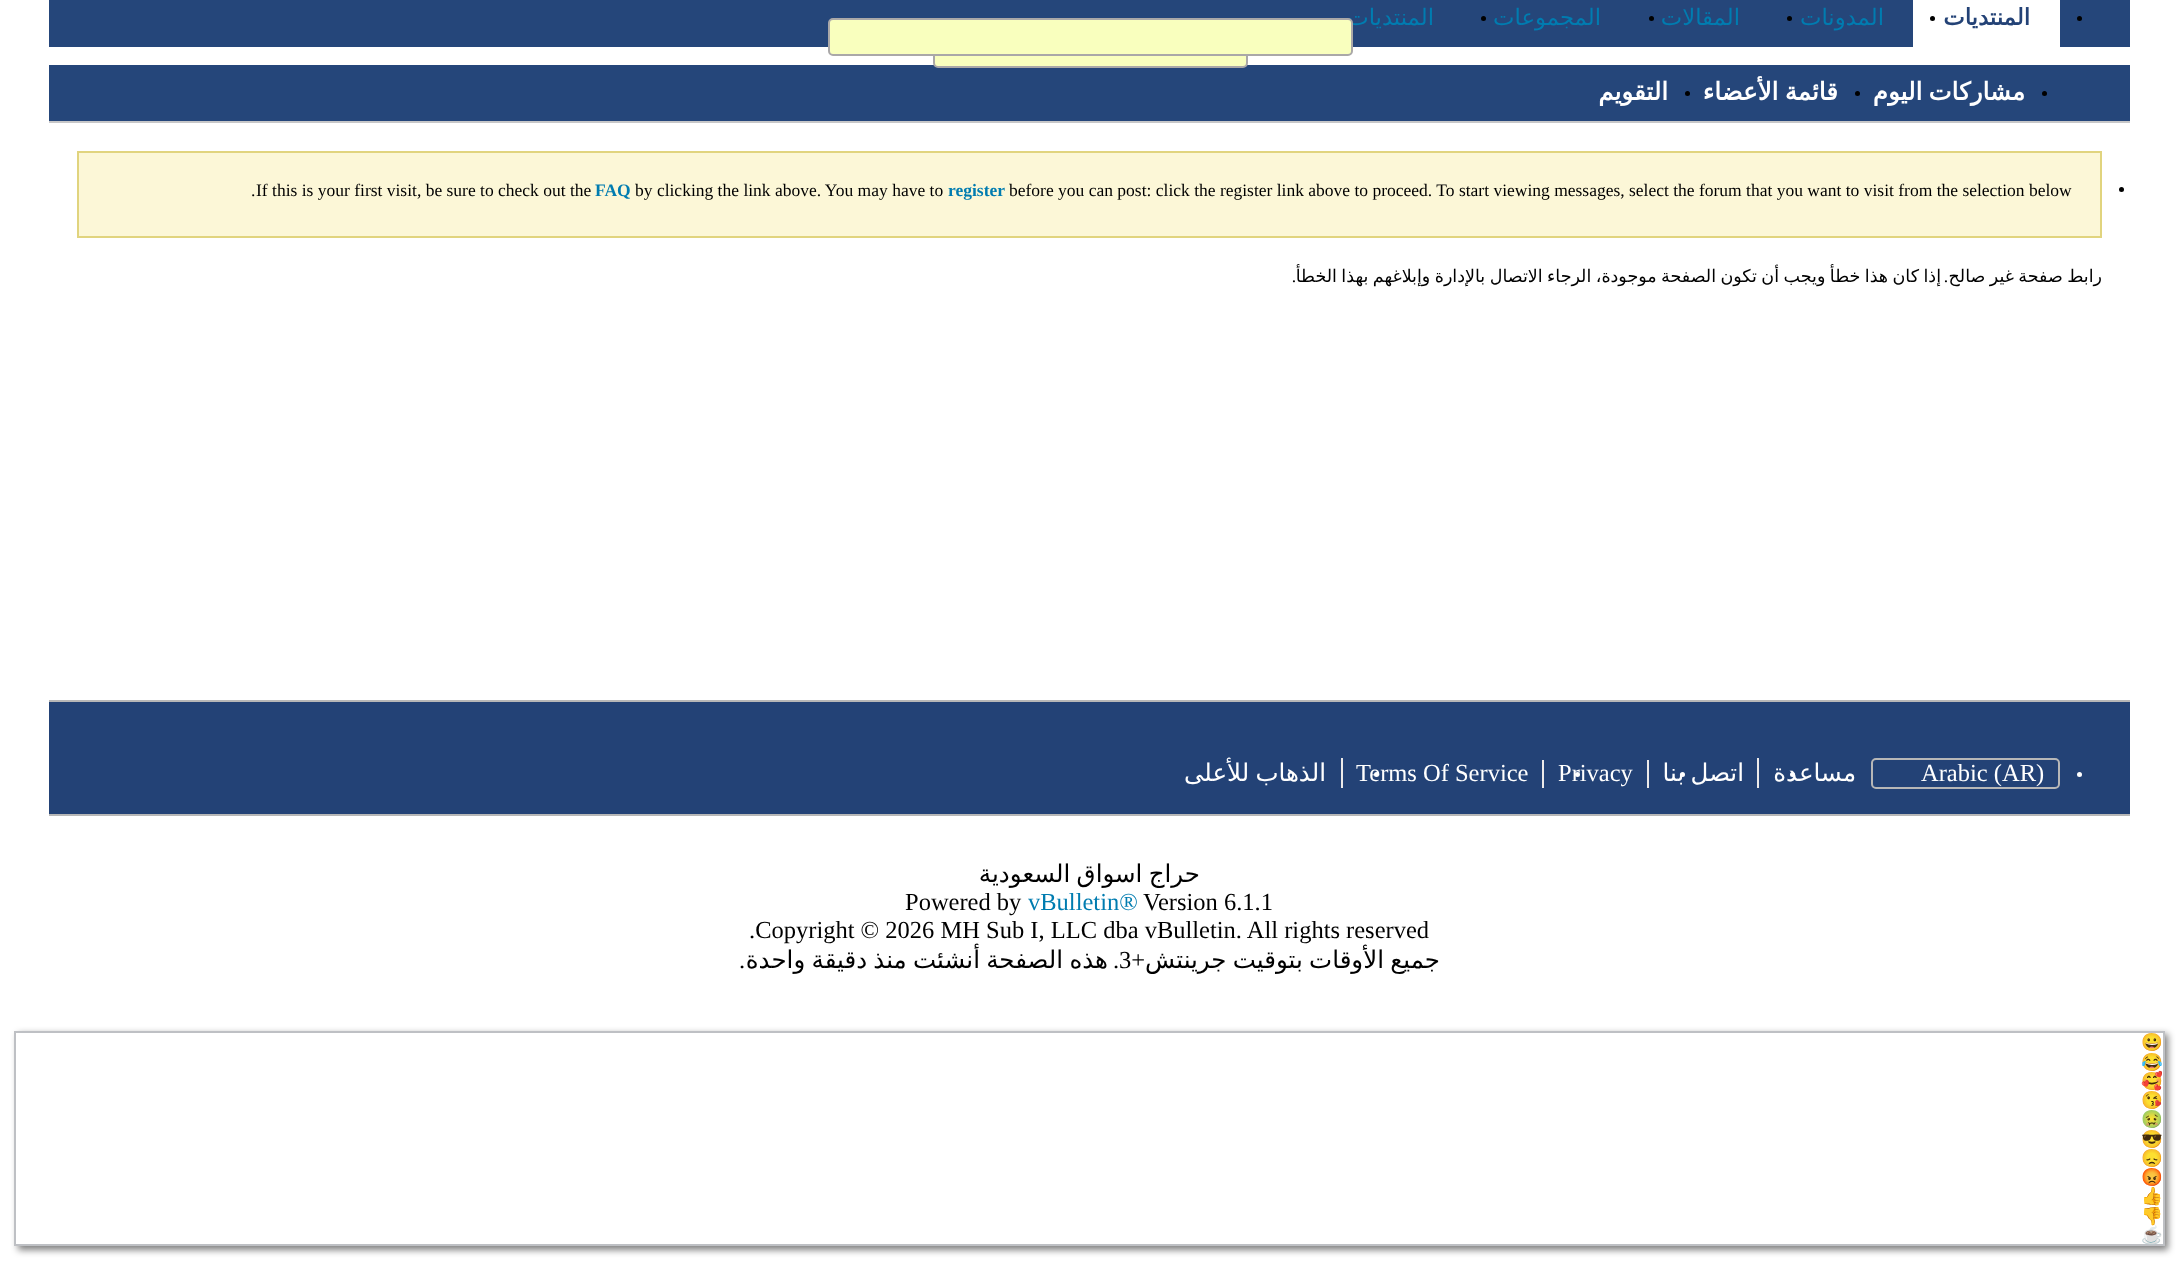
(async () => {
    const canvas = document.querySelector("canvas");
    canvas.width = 2178;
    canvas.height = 1263;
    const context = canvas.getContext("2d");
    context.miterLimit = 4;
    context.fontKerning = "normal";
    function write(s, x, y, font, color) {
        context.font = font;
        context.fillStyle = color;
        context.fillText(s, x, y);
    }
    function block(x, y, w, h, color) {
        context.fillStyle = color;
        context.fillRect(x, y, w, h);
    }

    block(0, 0, 2178, 1263, "rgb(255, 255, 255)");
    block(49, 0, 2081, 47, "rgb(37, 70, 122)");
    context.direction = "rtl";
    write("المنتديات", 1434, 25, "22.75px DejaVu Sans", "rgb(0, 124, 176)");
    context.fillStyle = "rgb(0, 0, 0)";
    context.beginPath();
    context.arc(1483.5, 18.5, 2.5, 0, Math.PI * 2);
    context.fill();
    write("المجموعات", 1601, 25, "22.75px DejaVu Sans", "rgb(0, 124, 176)");
    context.fillStyle = "rgb(0, 0, 0)";
    context.beginPath();
    context.arc(1651.5, 18.5, 2.5, 0, Math.PI * 2);
    context.fill();
    write("المقالات", 1740, 25, "22.75px DejaVu Sans", "rgb(0, 124, 176)");
    context.fillStyle = "rgb(0, 0, 0)";
    context.beginPath();
    context.arc(1789.5, 18.5, 2.5, 0, Math.PI * 2);
    context.fill();
    write("المدونات", 1884, 25, "22.75px DejaVu Sans", "rgb(0, 124, 176)");
    block(1913, 0, 147, 47, "rgb(255, 255, 255)");
    context.fillStyle = "rgb(0, 0, 0)";
    context.beginPath();
    context.arc(1932.5, 18.5, 2.5, 0, Math.PI * 2);
    context.fill();
    write("المنتديات", 2030, 25, "bold 22.75px DejaVu Sans", "rgb(35, 66, 118)");
    context.fillStyle = "rgb(0, 0, 0)";
    context.beginPath();
    context.arc(2079.5, 18.5, 2.5, 0, Math.PI * 2);
    context.fill();
    block(49, 65, 2081, 56, "rgb(37, 70, 122)");
    block(49, 121, 2081, 2, "rgb(199, 199, 200)");
    write("التقويم", 1668, 100, "bold 24.5px DejaVu Sans", "rgb(255, 255, 255)");
    context.fillStyle = "rgb(0, 0, 0)";
    context.beginPath();
    context.arc(1687.5, 93.5, 2.5, 0, Math.PI * 2);
    context.fill();
    context.wordSpacing = "-1.5px";
    write("قائمة الأعضاء", 1838, 100, "bold 24.5px DejaVu Sans", "rgb(255, 255, 255)");
    context.fillStyle = "rgb(0, 0, 0)";
    context.beginPath();
    context.arc(1857.5, 93.5, 2.5, 0, Math.PI * 2);
    context.fill();
    write("مشاركات اليوم", 2025, 100, "bold 24.5px DejaVu Sans", "rgb(255, 255, 255)");
    context.fillStyle = "rgb(0, 0, 0)";
    context.beginPath();
    context.arc(2044.5, 93.5, 2.5, 0, Math.PI * 2);
    context.fill();
    context.fillStyle = "rgb(252, 247, 215)";
    context.beginPath();
    context.rect(78, 152, 2023, 85);
    context.fill();
    context.strokeStyle = "rgb(225, 212, 126)";
    context.lineWidth = 2;
    context.stroke();
    context.wordSpacing = "0px";
    context.direction = "ltr";
    write("If this is your first visit, be sure to check out the", 256, 196, "17.5px Liberation Serif", "rgb(0, 0, 0)");
    write("FAQ", 595, 196, "bold 17.5px Liberation Serif", "rgb(0, 124, 176)");
    write("by clicking the link above. You may have to", 635, 196, "17.5px Liberation Serif", "rgb(0, 0, 0)");
    write("register", 948, 196, "bold 17.5px Liberation Serif", "rgb(0, 124, 176)");
    write("before you can post: click the register link above to proceed. To start viewing messages, select the forum that you want to visit from the selection below", 1009, 196, "17.5px Liberation Serif", "rgb(0, 0, 0)");
    context.beginPath();
    context.arc(2121.5, 189.5, 2.5, 0, Math.PI * 2);
    context.fill();
    write(".", 251, 196, "17.5px Liberation Serif", "rgb(0, 0, 0)");
    context.direction = "rtl";
    write(".", 1296, 282, "17.5px Liberation Serif", "rgb(0, 0, 0)");
    context.wordSpacing = "-1.1px";
    write("إذا كان هذا خطأ ويجب أن تكون الصفحة موجودة، الرجاء الاتصال بالإدارة وإبلاغهم بهذا الخطأ", 1941, 282, "17.5px DejaVu Sans", "rgb(0, 0, 0)");
    context.wordSpacing = "0px";
    write(".", 1948, 282, "17.5px Liberation Serif", "rgb(0, 0, 0)");
    context.wordSpacing = "-1.1px";
    write("رابط صفحة غير صالح", 2102, 282, "17.5px DejaVu Sans", "rgb(0, 0, 0)");
    block(49, 702, 2081, 112, "rgb(35, 66, 118)");
    block(49, 700, 2081, 2, "rgb(183, 183, 183)");
    block(49, 814, 2081, 2, "rgb(183, 183, 183)");
    block(1341, 758, 2, 30, "rgb(236, 234, 234)");
    context.wordSpacing = "-1.5px";
    write("الذهاب للأعلى", 1326, 781, "24.5px DejaVu Sans", "rgb(255, 255, 255)");
    context.beginPath();
    context.arc(1376.5, 774.5, 2.5, 0, Math.PI * 2);
    context.fill();
    block(1542, 760, 2, 28, "rgb(236, 234, 234)");
    context.wordSpacing = "0px";
    context.direction = "ltr";
    write("Terms Of Service", 1356, 781, "24.5px Liberation Serif", "rgb(255, 255, 255)");
    context.beginPath();
    context.arc(1577.5, 774.5, 2.5, 0, Math.PI * 2);
    context.fill();
    block(1647, 760, 2, 28, "rgb(236, 234, 234)");
    write("Privacy", 1558, 781, "24.5px Liberation Serif", "rgb(255, 255, 255)");
    context.beginPath();
    context.arc(1682.5, 774.5, 2.5, 0, Math.PI * 2);
    context.fill();
    block(1757, 758, 2, 30, "rgb(236, 234, 234)");
    context.wordSpacing = "-1.5px";
    context.direction = "rtl";
    write("اتصل بنا", 1744, 781, "24.5px DejaVu Sans", "rgb(255, 255, 255)");
    context.beginPath();
    context.arc(1792.5, 774.5, 2.5, 0, Math.PI * 2);
    context.fill();
    context.wordSpacing = "0px";
    write("مساعدة", 1856, 781, "24.5px DejaVu Sans", "rgb(255, 255, 255)");
    context.beginPath();
    context.roundRect(1872, 759, 187, 29, 4);
    context.strokeStyle = "rgb(183, 183, 183)";
    context.stroke();
    context.direction = "ltr";
    write("Arabic (AR)", 1921, 781, "24.5px Liberation Serif", "rgb(255, 255, 255)");
    context.beginPath();
    context.arc(2079.5, 774.5, 2.5, 0, Math.PI * 2);
    context.fill();
    context.wordSpacing = "-1.5px";
    context.direction = "rtl";
    write("حراج اسواق السعودية", 1200, 882, "24.5px DejaVu Sans", "rgb(0, 0, 0)");
    context.wordSpacing = "0px";
    context.direction = "ltr";
    write("Powered by", 905, 910, "24.5px Liberation Serif", "rgb(0, 0, 0)");
    write("vBulletin®", 1028, 910, "24.5px Liberation Serif", "rgb(0, 124, 176)");
    write("Version 6.1.1", 1143, 910, "24.5px Liberation Serif", "rgb(0, 0, 0)");
    write(".Copyright © 2026 MH Sub I, LLC dba vBulletin. All rights reserved", 749, 938, "24.5px Liberation Serif", "rgb(0, 0, 0)");
    context.wordSpacing = "-1.5px";
    context.direction = "rtl";
    write("هذه الصفحة أنشئت منذ دقيقة واحدة", 1108, 968, "24.5px DejaVu Sans", "rgb(0, 0, 0)");
    context.wordSpacing = "0px";
    context.direction = "ltr";
    write("3", 1119, 968, "24.5px Liberation Serif", "rgb(0, 0, 0)");
    context.direction = "rtl";
    write("+", 1145, 968, "24.5px Liberation Serif", "rgb(0, 0, 0)");
    context.wordSpacing = "-1.5px";
    write("جميع الأوقات بتوقيت جرينتش", 1440, 968, "24.5px DejaVu Sans", "rgb(0, 0, 0)");
    context.wordSpacing = "0px";
    write(".", 745, 968, "24.5px Liberation Serif", "rgb(0, 0, 0)");
    write(".", 1119, 968, "24.5px Liberation Serif", "rgb(0, 0, 0)");
    context.fillStyle = "rgb(249, 255, 190)";
    context.beginPath();
    context.roundRect(934, 19, 313, 48, 4);
    context.fill();
    context.strokeStyle = "rgb(170, 168, 168)";
    context.stroke();
    context.beginPath();
    context.roundRect(829, 19, 523, 36, 4);
    context.fill();
    context.stroke();
    context.fillStyle = "rgba(0, 0, 0, 0.5)";
    context.filter = "blur(3.5px)";
    context.beginPath();
    context.rect(18, 1034, 2150, 216);
    context.fill();
    context.filter = "none";
    context.fillStyle = "rgb(255, 255, 255)";
    context.beginPath();
    context.rect(15, 1032, 2149, 213);
    context.fill();
    context.strokeStyle = "rgb(190, 192, 196)";
    context.stroke();
    context.direction = "ltr";
    write("😀", 2141, 1048, "17.5px Noto Color Emoji", "rgb(0, 0, 0)");
    write("😂", 2141, 1068, "17.5px Noto Color Emoji", "rgb(0, 0, 0)");
    write("🥰", 2141, 1087, "17.5px Noto Color Emoji", "rgb(0, 0, 0)");
    write("😘", 2141, 1106, "17.5px Noto Color Emoji", "rgb(0, 0, 0)");
    write("🤢", 2141, 1125, "17.5px Noto Color Emoji", "rgb(0, 0, 0)");
    write("😎", 2141, 1145, "17.5px Noto Color Emoji", "rgb(0, 0, 0)");
    write("😞", 2141, 1164, "17.5px Noto Color Emoji", "rgb(0, 0, 0)");
    write("😡", 2141, 1183, "17.5px Noto Color Emoji", "rgb(0, 0, 0)");
    write("👍", 2141, 1202, "17.5px Noto Color Emoji", "rgb(0, 0, 0)");
    write("👎", 2141, 1222, "17.5px Noto Color Emoji", "rgb(0, 0, 0)");
    write("☕", 2141, 1241, "17.5px Noto Color Emoji", "rgb(0, 0, 0)");
})();
